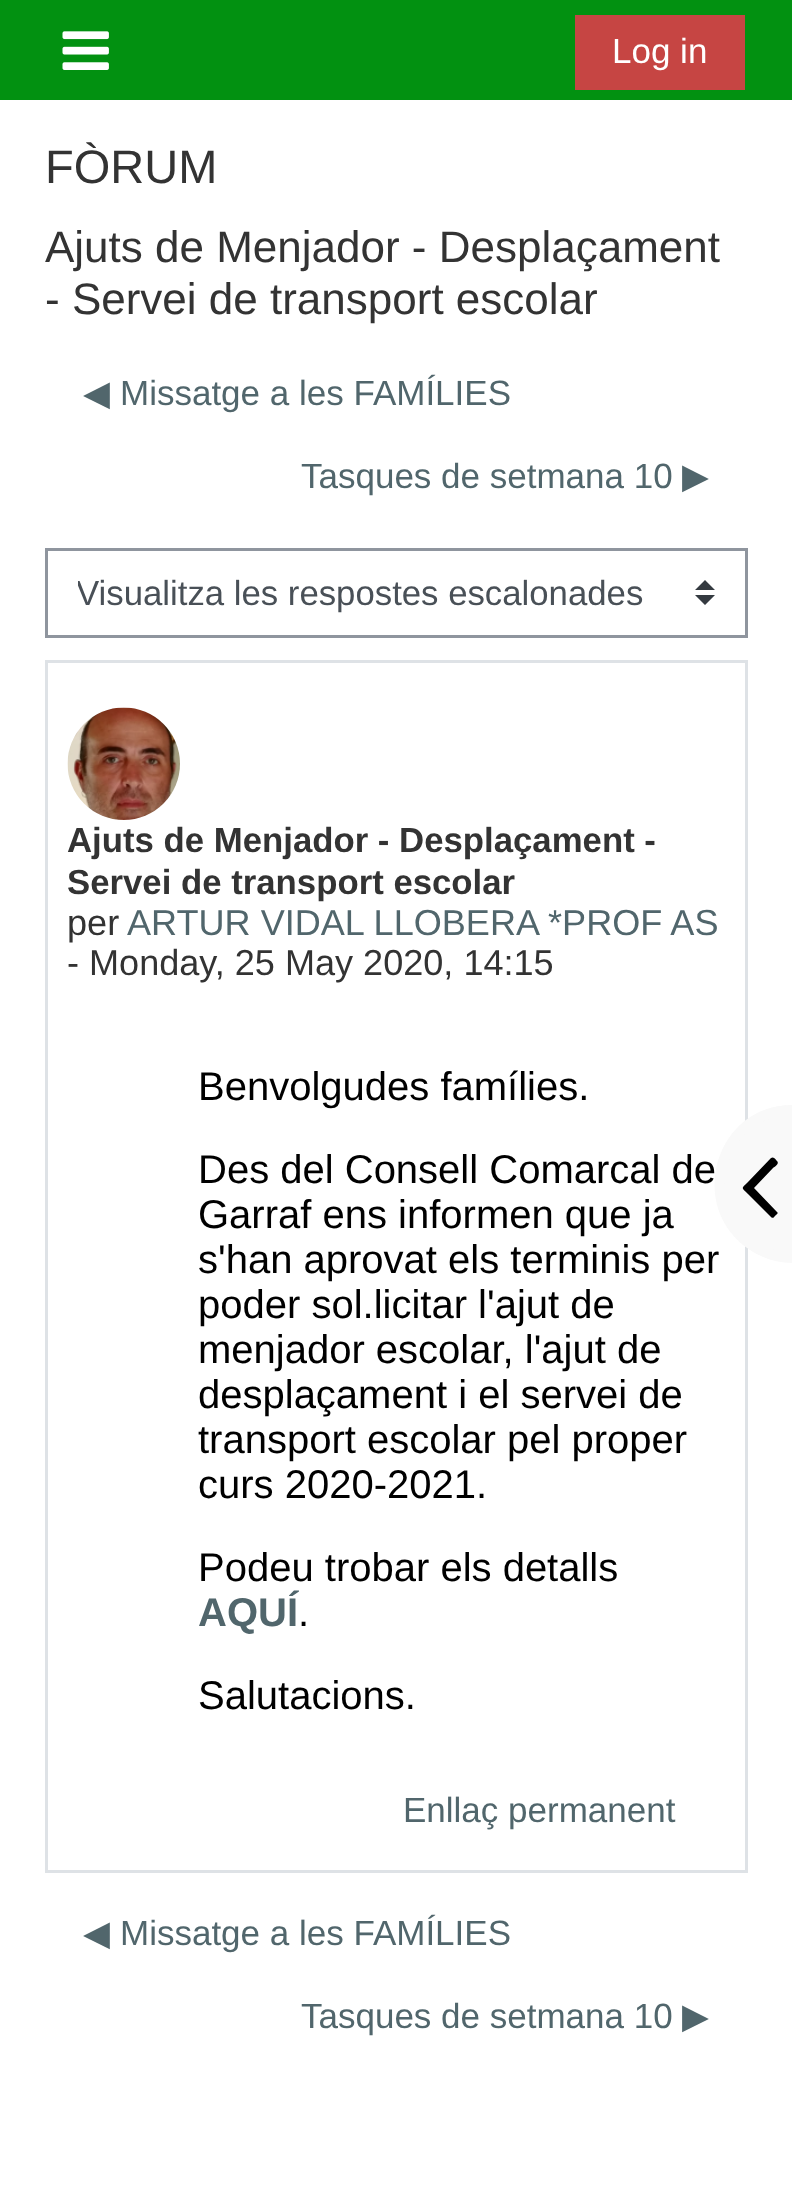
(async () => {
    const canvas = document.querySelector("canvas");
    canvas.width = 792;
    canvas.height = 2207;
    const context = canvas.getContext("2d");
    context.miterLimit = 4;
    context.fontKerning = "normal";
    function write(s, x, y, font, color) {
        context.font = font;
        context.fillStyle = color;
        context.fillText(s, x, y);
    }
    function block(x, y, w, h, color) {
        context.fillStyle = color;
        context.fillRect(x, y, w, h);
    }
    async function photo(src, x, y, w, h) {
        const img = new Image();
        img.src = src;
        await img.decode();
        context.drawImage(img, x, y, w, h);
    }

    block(0, 0, 792, 2207, "rgb(255, 255, 255)");
    block(0, 0, 792, 100, "rgb(2, 145, 17)");
    await photo("media/1.png", 62, 31, 47, 39);
    block(575, 15, 170, 75, "rgb(198, 69, 67)");
    write("Log in", 612, 63, "35px Liberation Sans", "rgb(255, 255, 255)");
    write("FÒRUM", 45, 183, "47px Liberation Sans", "rgb(51, 51, 51)");
    write("Ajuts de Menjador - Desplaçament", 45, 262, "44px Liberation Sans", "rgb(51, 51, 51)");
    write("- Servei de transport escolar", 45, 314, "44px Liberation Sans", "rgb(51, 51, 51)");
    write("◀︎", 83, 405, "35px DejaVu Sans", "rgb(81, 102, 108)");
    write("Missatge a les FAMÍLIES", 120, 405, "35px Liberation Sans", "rgb(81, 102, 108)");
    write("Tasques de setmana 10", 301, 488, "35px Liberation Sans", "rgb(81, 102, 108)");
    write("▶︎", 682, 488, "35px DejaVu Sans", "rgb(81, 102, 108)");
    context.fillStyle = "rgb(52, 58, 64)";
    context.beginPath();
    context.moveTo(705, 580);
    context.lineTo(695, 590);
    context.lineTo(715, 590);
    context.closePath();
    context.moveTo(705, 605);
    context.lineTo(695, 595);
    context.lineTo(715, 595);
    context.closePath();
    context.fill();
    context.strokeStyle = "rgb(143, 149, 158)";
    context.lineWidth = 3;
    context.strokeRect(46.5, 549.5, 700, 87);
    context.save();
    context.beginPath();
    context.rect(78, 568, 600, 52);
    context.clip();
    write("Visualitza les respostes escalonades", 76, 605, "34.75px Liberation Sans", "rgb(73, 80, 87)");
    context.restore();
    context.strokeStyle = "rgb(222, 226, 230)";
    context.strokeRect(46.5, 661.5, 700, 1210);
    await photo("media/2.png", 67, 707, 113, 113);
    write("Ajuts de Menjador - Desplaçament -", 67, 852, "bold 34.75px Liberation Sans", "rgb(51, 51, 51)");
    write("Servei de transport escolar", 67, 894, "bold 34.75px Liberation Sans", "rgb(51, 51, 51)");
    write("per", 67, 935, "36.1px Liberation Sans", "rgb(51, 51, 51)");
    write("ARTUR VIDAL LLOBERA *PROF AS", 127, 935, "36.1px Liberation Sans", "rgb(81, 102, 108)");
    write("- Monday, 25 May 2020, 14:15", 67, 975, "36.1px Liberation Sans", "rgb(51, 51, 51)");
    write("Benvolgudes famílies.", 198, 1100, "40px Liberation Sans", "rgb(0, 0, 0)");
    write("Des del Consell Comarcal de", 198, 1183, "40px Liberation Sans", "rgb(0, 0, 0)");
    write("Garraf ens informen que ja", 198, 1228, "40px Liberation Sans", "rgb(0, 0, 0)");
    write("s'han aprovat els terminis per", 198, 1273, "40px Liberation Sans", "rgb(0, 0, 0)");
    write("poder sol.licitar l'ajut de", 198, 1318, "40px Liberation Sans", "rgb(0, 0, 0)");
    write("menjador escolar, l'ajut de", 198, 1363, "40px Liberation Sans", "rgb(0, 0, 0)");
    write("desplaçament i el servei de", 198, 1408, "40px Liberation Sans", "rgb(0, 0, 0)");
    write("transport escolar pel proper", 198, 1453, "40px Liberation Sans", "rgb(0, 0, 0)");
    write("curs 2020-2021.", 198, 1498, "40px Liberation Sans", "rgb(0, 0, 0)");
    write("Podeu trobar els detalls", 198, 1581, "40px Liberation Sans", "rgb(0, 0, 0)");
    write("AQUÍ", 198, 1626, "bold 40px Liberation Sans", "rgb(81, 102, 108)");
    write(".", 298, 1626, "40px Liberation Sans", "rgb(0, 0, 0)");
    write("Salutacions.", 198, 1709, "40px Liberation Sans", "rgb(0, 0, 0)");
    write("Enllaç permanent", 403, 1822, "35px Liberation Sans", "rgb(81, 102, 108)");
    write("◀︎", 83, 1945, "35px DejaVu Sans", "rgb(81, 102, 108)");
    write("Missatge a les FAMÍLIES", 120, 1945, "35px Liberation Sans", "rgb(81, 102, 108)");
    write("Tasques de setmana 10", 301, 2028, "35px Liberation Sans", "rgb(81, 102, 108)");
    write("▶︎", 682, 2028, "35px DejaVu Sans", "rgb(81, 102, 108)");
    context.fillStyle = "rgb(249, 249, 249)";
    context.beginPath();
    context.moveTo(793, 1105);
    context.lineTo(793, 1263);
    context.bezierCurveTo(750, 1263, 715, 1228, 715, 1185);
    context.lineTo(715, 1183);
    context.bezierCurveTo(715, 1140, 750, 1105, 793, 1105);
    context.closePath();
    context.fill();
    context.beginPath();
    context.moveTo(792, 1105);
    context.lineTo(792, 1262);
    context.bezierCurveTo(777, 1262, 762, 1258, 749, 1249);
    context.bezierCurveTo(686, 1207, 715, 1105, 792, 1105);
    context.closePath();
    context.moveTo(792, 1115);
    context.lineTo(792, 1252);
    context.bezierCurveTo(779, 1252, 766, 1248, 755, 1241);
    context.bezierCurveTo(700, 1204, 725, 1115, 792, 1115);
    context.closePath();
    context.fill("evenodd");
    context.fillStyle = "rgb(0, 0, 0)";
    context.beginPath();
    context.moveTo(777, 1161);
    context.bezierCurveTo(780, 1164, 774, 1167, 773, 1168);
    context.lineTo(754, 1188);
    context.lineTo(777, 1212);
    context.bezierCurveTo(779, 1213, 776, 1215, 775, 1216);
    context.bezierCurveTo(774, 1217, 773, 1219, 771, 1217);
    context.lineTo(748, 1194);
    context.bezierCurveTo(741, 1187, 741, 1189, 748, 1182);
    context.lineTo(771, 1158);
    context.bezierCurveTo(774, 1156, 776, 1160, 777, 1161);
    context.closePath();
    context.fill();
})();
